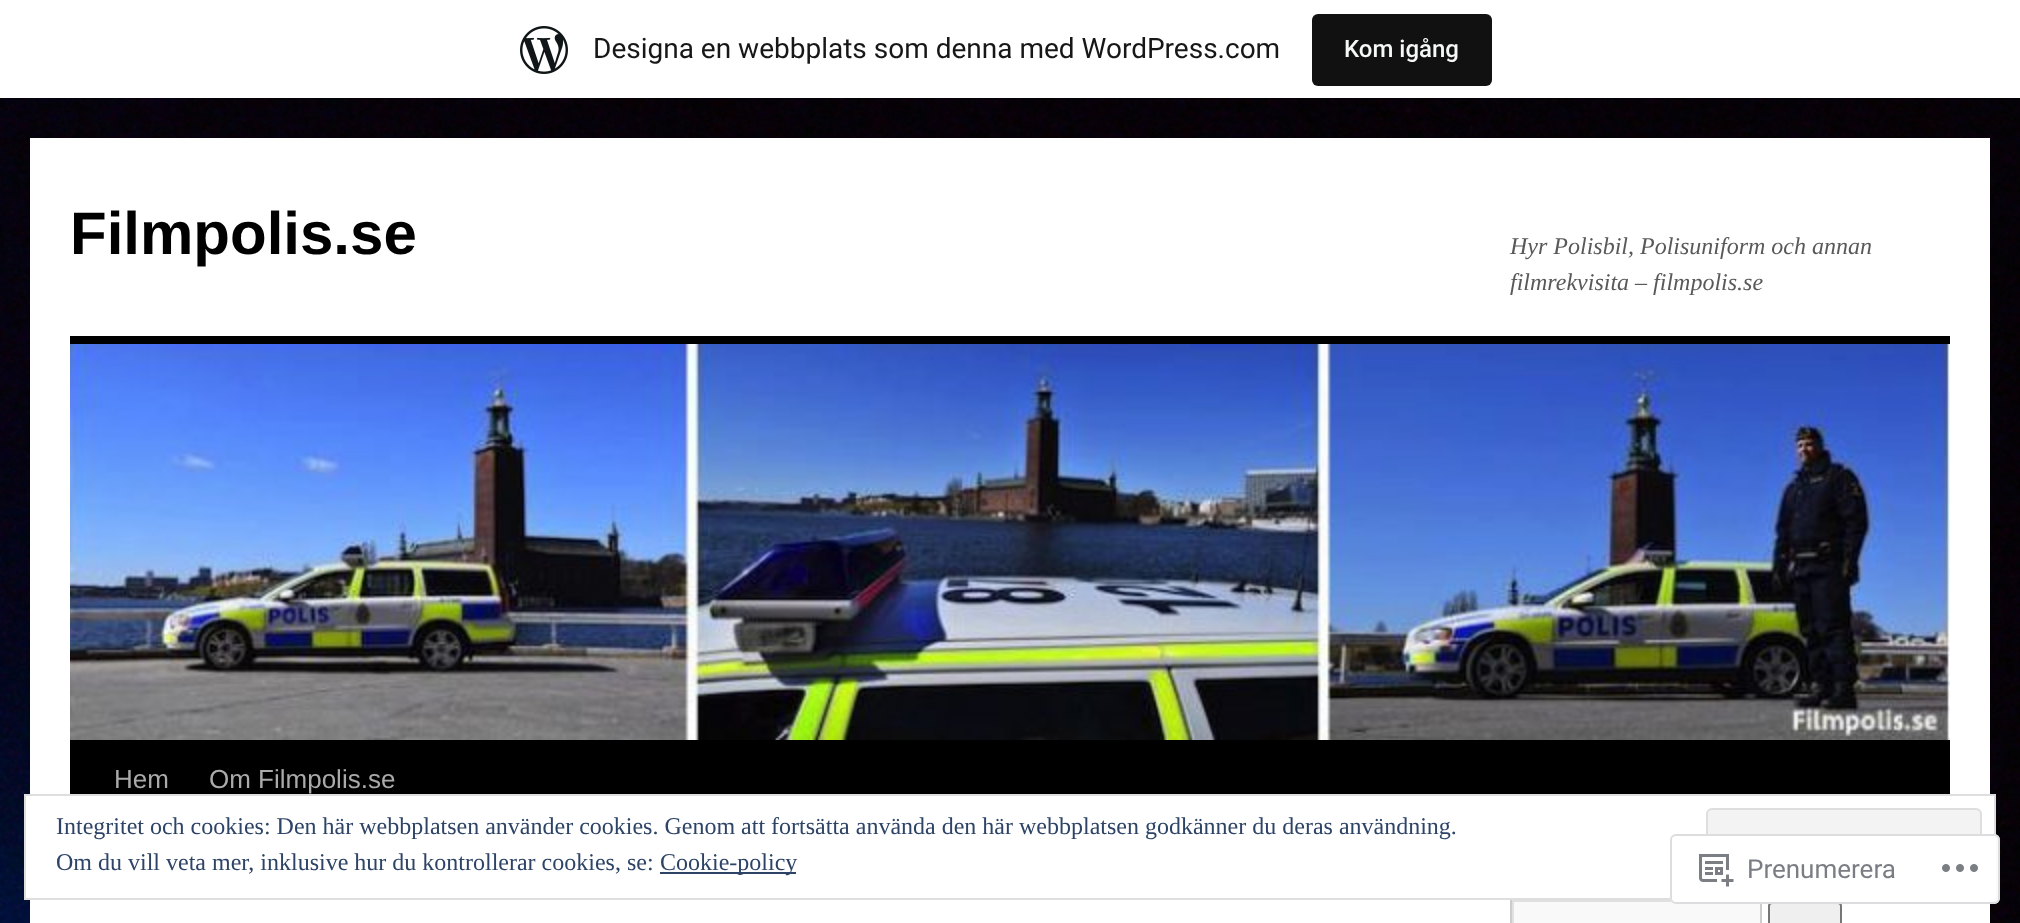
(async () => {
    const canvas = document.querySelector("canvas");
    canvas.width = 2020;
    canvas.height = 923;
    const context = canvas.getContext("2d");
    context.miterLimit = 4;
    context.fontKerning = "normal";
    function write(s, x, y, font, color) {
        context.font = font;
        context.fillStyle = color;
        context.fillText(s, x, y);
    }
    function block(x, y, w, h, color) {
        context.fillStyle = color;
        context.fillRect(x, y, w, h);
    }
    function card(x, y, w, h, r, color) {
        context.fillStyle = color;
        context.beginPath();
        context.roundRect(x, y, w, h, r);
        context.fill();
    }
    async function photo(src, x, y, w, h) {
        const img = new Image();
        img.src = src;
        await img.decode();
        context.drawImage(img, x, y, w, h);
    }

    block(0, 0, 2020, 923, "rgb(255, 255, 255)");
    await photo("media/1.png", 0, 98, 2020, 825);
    await photo("media/2.png", 520, 26, 48, 48);
    write("Designa en webbplats som denna med WordPress.com", 593, 58, "28px Roboto", "rgb(23, 23, 23)");
    card(1312, 14, 180, 72, 6, "rgb(17, 17, 17)");
    write("Kom igång", 1344, 57, "500 24px Roboto", "rgb(246, 247, 247)");
    block(30, 138, 1960, 785, "rgb(255, 255, 255)");
    write("Filmpolis.se", 70, 254, "bold 60px Liberation Sans", "rgb(0, 0, 0)");
    write("Hyr Polisbil, Polisuniform och annan", 1510, 254, "italic 24px Liberation Serif", "rgb(89, 89, 89)");
    write("filmrekvisita – filmpolis.se", 1510, 290, "italic 24px Liberation Serif", "rgb(89, 89, 89)");
    block(70, 336, 1880, 8, "rgb(0, 0, 0)");
    block(70, 740, 1880, 54, "rgb(0, 0, 0)");
    await photo("media/3.png", 70, 344, 1880, 396);
    write("Hem", 114, 788, "26px Liberation Sans", "rgb(170, 170, 170)");
    write("Om Filmpolis.se", 209, 788, "26px Liberation Sans", "rgb(170, 170, 170)");
    block(1514, 902, 246, 21, "rgb(249, 249, 249)");
    context.save();
    context.beginPath();
    context.rect(1512, 900, 248, 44);
    context.clip();
    context.fillStyle = "rgb(224, 224, 224)";
    context.beginPath();
    context.moveTo(1314, 702);
    context.lineTo(1958, 702);
    context.lineTo(1958, 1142);
    context.lineTo(1314, 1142);
    context.closePath();
    context.moveTo(1514, 902);
    context.lineTo(1762, 902);
    context.lineTo(1762, 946);
    context.lineTo(1514, 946);
    context.closePath();
    context.fill("evenodd");
    context.restore();
    context.strokeStyle = "rgb(204, 204, 204)";
    context.lineWidth = 2;
    context.strokeRect(1511, 899, 250, 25);
    context.fillStyle = "rgb(239, 239, 239)";
    context.beginPath();
    context.roundRect(1769, 903, 72, 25, 3);
    context.fill();
    context.strokeStyle = "rgb(118, 118, 118)";
    context.stroke();
    context.fillStyle = "rgb(255, 255, 255)";
    context.beginPath();
    context.rect(25, 795, 1970, 104);
    context.fill();
    context.strokeStyle = "rgb(222, 222, 222)";
    context.stroke();
    write("Integritet och cookies: Den här webbplatsen använder cookies. Genom att fortsätta använda den här webbplatsen godkänner du deras användning.", 56, 834, "24px Liberation Serif", "rgb(46, 68, 103)");
    context.fillStyle = "rgb(243, 243, 243)";
    context.beginPath();
    context.roundRect(1707, 809, 274, 76, 5);
    context.fill();
    context.stroke();
    write("Om du vill veta mer, inklusive hur du kontrollerar cookies, se:", 56, 870, "24px Liberation Serif", "rgb(46, 68, 103)");
    block(660, 872, 136, 2, "rgb(46, 68, 103)");
    write("Cookie-policy", 660, 870, "24px Liberation Serif", "rgb(46, 68, 103)");
    card(1670, 834, 330, 70, 6, "rgba(255, 255, 255, 0.98)");
    context.beginPath();
    context.roundRect(1671, 835, 328, 68, 5);
    context.strokeStyle = "rgba(220, 220, 222, 0.98)";
    context.stroke();
    await photo("media/4.png", 1699, 854, 35, 33);
    write("Prenumerera", 1747, 878, "26px Roboto", "rgb(122, 126, 132)");
    await photo("media/5.png", 1942, 864, 36, 8);
})();
